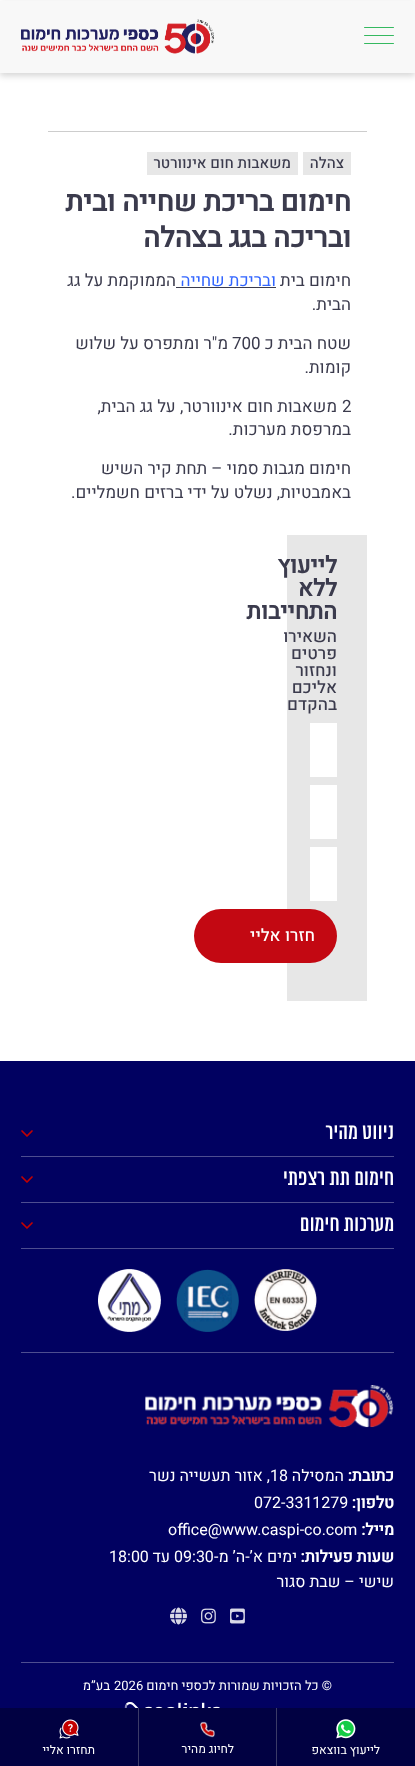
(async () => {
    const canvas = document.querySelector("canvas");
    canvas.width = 415;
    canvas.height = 1766;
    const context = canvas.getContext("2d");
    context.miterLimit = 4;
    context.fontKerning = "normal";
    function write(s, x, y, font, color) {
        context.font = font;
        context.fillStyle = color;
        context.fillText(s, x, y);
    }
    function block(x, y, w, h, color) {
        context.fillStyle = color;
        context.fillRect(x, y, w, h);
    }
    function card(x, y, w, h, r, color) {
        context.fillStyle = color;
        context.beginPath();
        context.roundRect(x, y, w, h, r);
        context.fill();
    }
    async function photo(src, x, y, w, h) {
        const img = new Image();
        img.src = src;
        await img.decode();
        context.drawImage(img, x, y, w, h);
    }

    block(0, 0, 415, 1766, "rgb(255, 255, 255)");
    context.fillStyle = "rgba(0, 0, 0, 0.16)";
    context.filter = "blur(3px)";
    context.beginPath();
    context.rect(0, 3, 415, 73);
    context.fill();
    context.filter = "none";
    block(0, 1, 415, 72, "rgb(248, 248, 248)");
    await photo("media/1.png", 21, 19, 193, 35);
    card(364, 35, 30, 1, 0.5, "rgb(53, 185, 96)");
    card(364, 27, 30, 1, 0.5, "rgb(53, 185, 96)");
    card(364, 43, 30, 1, 0.5, "rgb(53, 185, 96)");
    block(48, 131, 319, 1, "rgb(205, 205, 205)");
    block(303, 152, 48, 23, "rgb(231, 231, 231)");
    context.direction = "rtl";
    write("צהלה", 344, 168, "500 15px Heebo", "rgb(59, 59, 77)");
    block(147, 152, 151, 23, "rgb(231, 231, 231)");
    write("משאבות חום אינוורטר", 291, 168, "500 15px Heebo", "rgb(59, 59, 77)");
    write("חימום בריכת שחייה ובית", 351, 211, "bold 28px Heebo", "rgb(59, 59, 77)");
    write("ובריכה בגג בצהלה", 351, 247, "bold 28px Heebo", "rgb(59, 59, 77)");
    write("חימום בית", 351, 286, "17px Heebo", "rgb(59, 59, 77)");
    write("ובריכת שחייה", 276, 286, "17px Heebo", "rgb(51, 102, 255)");
    block(176, 287, 100, 1, "rgb(59, 59, 77)");
    write("הממוקמת על גג", 176, 286, "17px Heebo", "rgb(59, 59, 77)");
    write("הבית.", 351, 310, "17px Heebo", "rgb(59, 59, 77)");
    write("שטח הבית כ", 351, 349, "17px Heebo", "rgb(59, 59, 77)");
    context.direction = "ltr";
    write("700", 232, 349, "17px Heebo", "rgb(59, 59, 77)");
    context.direction = "rtl";
    write("מ\"ר ומתפרס על שלוש", 228, 349, "17px Heebo", "rgb(59, 59, 77)");
    write("קומות.", 351, 373, "17px Heebo", "rgb(59, 59, 77)");
    context.direction = "ltr";
    write("2", 342, 412, "17px Heebo", "rgb(59, 59, 77)");
    context.direction = "rtl";
    write("משאבות חום אינוורטר, על גג הבית,", 337, 412, "17px Heebo", "rgb(59, 59, 77)");
    write("במרפסת מערכות.", 351, 435, "17px Heebo", "rgb(59, 59, 77)");
    write("חימום מגבות סמוי – תחת קיר השיש", 351, 474, "17px Heebo", "rgb(59, 59, 77)");
    write("באמבטיות, נשלט על ידי ברזים חשמליים.", 351, 498, "17px Heebo", "rgb(59, 59, 77)");
    block(287, 535, 80, 466, "rgb(231, 231, 231)");
    write("לייעוץ", 337, 573, "bold 23px Heebo", "rgb(59, 59, 77)");
    write("ללא", 337, 596, "bold 23px Heebo", "rgb(59, 59, 77)");
    write("התחייבות", 337, 619, "bold 23px Heebo", "rgb(59, 59, 77)");
    write("השאירו", 337, 642, "500 17px Heebo", "rgb(59, 59, 77)");
    write("פרטים", 337, 659, "500 17px Heebo", "rgb(59, 59, 77)");
    write("ונחזור", 337, 676, "500 17px Heebo", "rgb(59, 59, 77)");
    write("אליכם", 337, 693, "500 17px Heebo", "rgb(59, 59, 77)");
    write("בהקדם", 337, 710, "500 17px Heebo", "rgb(59, 59, 77)");
    block(310, 723, 27, 54, "rgb(255, 255, 255)");
    block(310, 785, 27, 54, "rgb(255, 255, 255)");
    block(310, 847, 27, 54, "rgb(255, 255, 255)");
    card(194, 909, 143, 54, 27, "rgb(195, 8, 18)");
    write("חזרו אליי", 315, 941, "500 17px Heebo", "rgb(255, 255, 255)");
    block(0, 1061, 415, 647, "rgb(1, 1, 97)");
    context.beginPath();
    context.moveTo(22, 1131);
    context.lineTo(27, 1136);
    context.lineTo(32, 1131);
    context.strokeStyle = "rgb(195, 0, 0)";
    context.lineWidth = 1.7;
    context.lineCap = "round";
    context.lineJoin = "round";
    context.stroke();
    block(21, 1156, 373, 1, "rgb(77, 77, 144)");
    write("ניווט מהיר", 394, 1139, "22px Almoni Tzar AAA", "rgb(255, 255, 255)");
    context.beginPath();
    context.moveTo(22, 1177);
    context.lineTo(27, 1182);
    context.lineTo(32, 1177);
    context.stroke();
    block(21, 1202, 373, 1, "rgb(77, 77, 144)");
    write("חימום תת רצפתי", 394, 1185, "22px Almoni Tzar AAA", "rgb(255, 255, 255)");
    context.beginPath();
    context.moveTo(22, 1223);
    context.lineTo(27, 1228);
    context.lineTo(32, 1223);
    context.stroke();
    block(21, 1248, 373, 1, "rgb(77, 77, 144)");
    write("מערכות חימום", 394, 1231, "22px Almoni Tzar AAA", "rgb(255, 255, 255)");
    block(21, 1352, 373, 1, "rgb(77, 77, 144)");
    await photo("media/2.png", 254, 1269, 63, 62);
    await photo("media/3.png", 176, 1269, 63, 63);
    await photo("media/4.png", 98, 1269, 63, 63);
    await photo("media/5.png", 145, 1385, 249, 43);
    write("כתובת:", 394, 1481, "bold 16px Heebo", "rgb(255, 255, 255)");
    write("המסילה", 344, 1481, "16px Heebo", "rgb(255, 255, 255)");
    context.direction = "ltr";
    write("18", 270, 1481, "16px Heebo", "rgb(255, 255, 255)");
    context.direction = "rtl";
    write(", אזור תעשייה נשר", 270, 1481, "16px Heebo", "rgb(255, 255, 255)");
    write("טלפון:", 394, 1508, "bold 16px Heebo", "rgb(255, 255, 255)");
    context.direction = "ltr";
    write("072-3311279", 254, 1508, "16px Heebo", "rgb(255, 255, 255)");
    context.direction = "rtl";
    write("מייל:", 394, 1535, "bold 16px Heebo", "rgb(255, 255, 255)");
    context.direction = "ltr";
    write("office@www.caspi-co.com", 168, 1535, "16px Heebo", "rgb(255, 255, 255)");
    context.direction = "rtl";
    write("שעות פעילות:", 394, 1562, "bold 16px Heebo", "rgb(255, 255, 255)");
    write("ימים א’-ה’ מ-", 297, 1562, "16px Heebo", "rgb(255, 255, 255)");
    context.direction = "ltr";
    write("09:30", 174, 1562, "16px Heebo", "rgb(255, 255, 255)");
    context.direction = "rtl";
    write("עד", 170, 1562, "16px Heebo", "rgb(255, 255, 255)");
    context.direction = "ltr";
    write("18:00", 109, 1562, "16px Heebo", "rgb(255, 255, 255)");
    context.direction = "rtl";
    write("שישי – שבת סגור", 394, 1587, "16px Heebo", "rgb(255, 255, 255)");
    await photo("media/6.png", 230, 1608, 15, 16);
    await photo("media/7.png", 201, 1608, 15, 16);
    await photo("media/8.png", 170, 1607, 17, 18);
    block(21, 1662, 373, 1, "rgb(77, 77, 144)");
    write("© כל הזכויות שמורות לכספי חימום", 332, 1690, "13px Heebo", "rgb(255, 255, 255)");
    context.direction = "ltr";
    write("2026", 114, 1690, "13px Heebo", "rgb(255, 255, 255)");
    context.direction = "rtl";
    write("בע”מ", 110, 1690, "13px Heebo", "rgb(255, 255, 255)");
    await photo("media/9.png", 124, 1702, 96, 6);
    block(0, 1708, 415, 58, "rgb(1, 1, 66)");
    await photo("media/10.png", 336, 1719, 20, 20);
    write("לייעוץ בווצאפ", 380, 1754, "12px Heebo", "rgb(255, 255, 255)");
    block(276, 1708, 1, 58, "rgb(59, 59, 103)");
    block(138, 1708, 1, 58, "rgb(59, 59, 103)");
    await photo("media/11.png", 200, 1721, 15, 17);
    write("לחיוג מהיר", 234, 1753, "12px Heebo", "rgb(255, 255, 255)");
    await photo("media/12.png", 59, 1719, 20, 20);
    write("תחזרו אליי", 95, 1754, "12px Heebo", "rgb(255, 255, 255)");
})();
